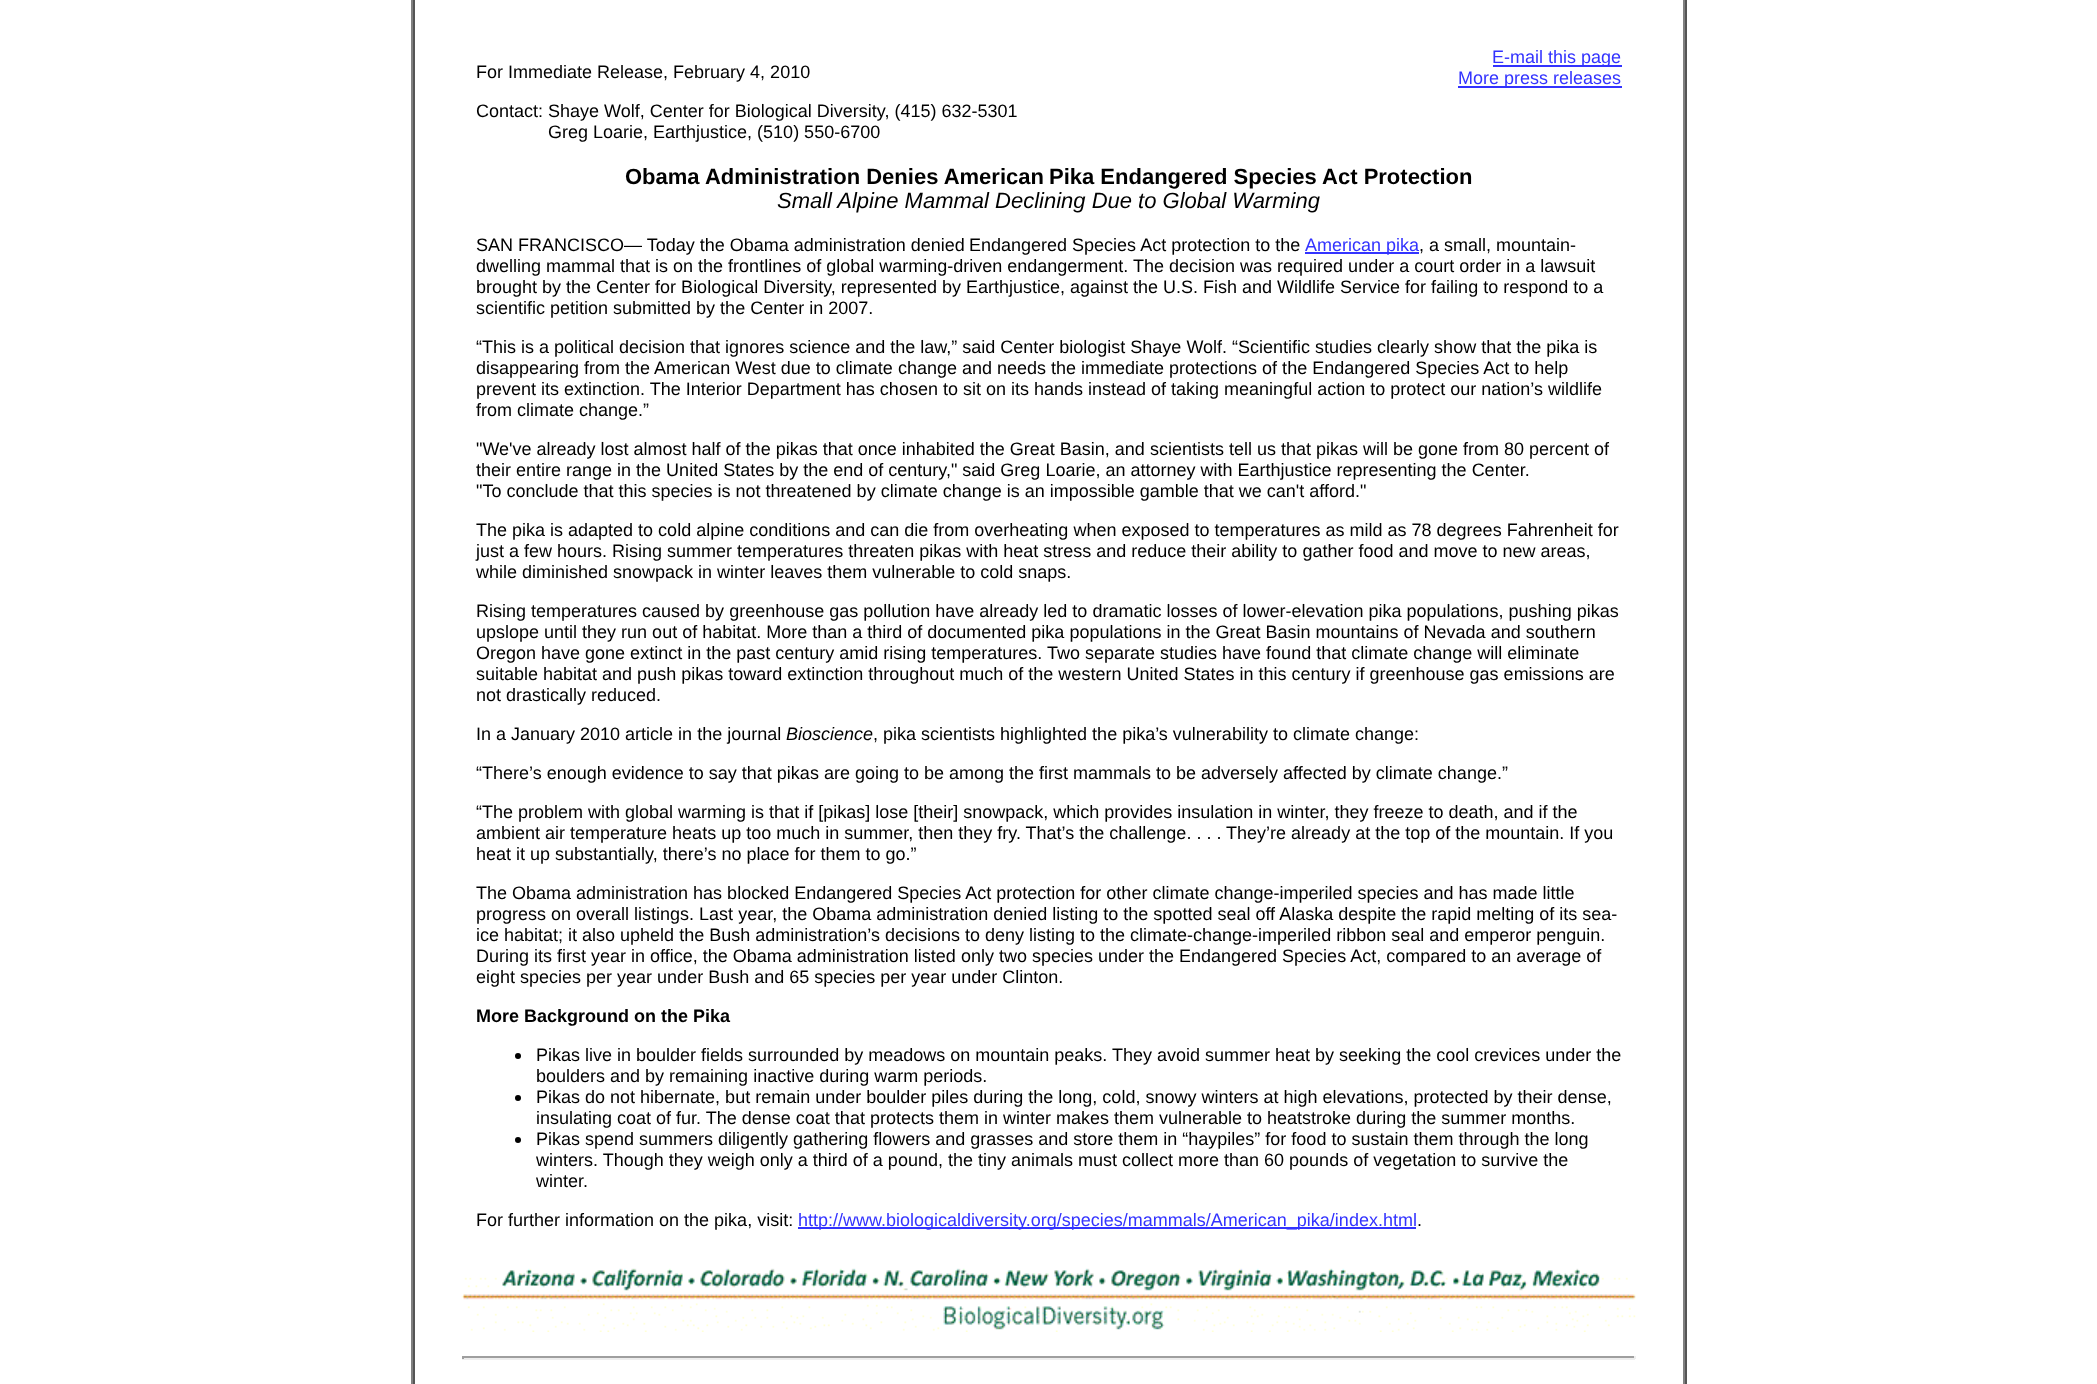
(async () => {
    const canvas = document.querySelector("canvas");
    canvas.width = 2097;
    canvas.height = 1384;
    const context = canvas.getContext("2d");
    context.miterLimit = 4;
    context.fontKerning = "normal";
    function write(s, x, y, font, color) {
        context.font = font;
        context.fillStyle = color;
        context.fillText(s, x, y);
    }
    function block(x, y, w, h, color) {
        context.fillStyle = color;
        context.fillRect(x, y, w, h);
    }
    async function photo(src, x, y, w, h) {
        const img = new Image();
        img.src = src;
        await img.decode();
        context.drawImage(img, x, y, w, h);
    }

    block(0, 0, 2097, 1384, "rgb(255, 255, 255)");
    block(1685, 0, 2, 1384, "rgb(85, 85, 85)");
    block(411, 0, 2, 1384, "rgb(128, 128, 128)");
    block(1683, 0, 2, 1384, "rgb(128, 128, 128)");
    block(413, 0, 2, 1384, "rgb(85, 85, 85)");
    write("For Immediate Release, February 4, 2010", 476, 78, "18px Liberation Sans", "rgb(0, 0, 0)");
    block(1493, 65, 129, 2, "rgb(51, 51, 255)");
    write("E-mail this page", 1492, 63, "18px Liberation Sans", "rgb(51, 51, 255)");
    block(1458, 86, 164, 2, "rgb(51, 51, 255)");
    write("More press releases", 1458, 84, "18px Liberation Sans", "rgb(51, 51, 255)");
    write("Contact: Shaye Wolf, Center for Biological Diversity, (415) 632-5301", 476, 117, "18px Liberation Sans", "rgb(0, 0, 0)");
    write("Greg Loarie, Earthjustice, (510) 550-6700", 548, 138, "18px Liberation Sans", "rgb(0, 0, 0)");
    write("Obama Administration Denies American", 625, 184, "bold 22px Liberation Sans", "rgb(0, 0, 0)");
    write("Pika Endangered Species Act Protection", 1049, 184, "bold 22px Liberation Sans", "rgb(0, 0, 0)");
    write("Small Alpine Mammal Declining Due to Global Warming", 777, 208, "italic 22px Liberation Sans", "rgb(0, 0, 0)");
    write("SAN FRANCISCO— Today the Obama administration denied", 476, 251, "18px Liberation Sans", "rgb(0, 0, 0)");
    write("Endangered Species Act protection to the", 969, 251, "18px Liberation Sans", "rgb(0, 0, 0)");
    block(1305, 252, 114, 2, "rgb(51, 51, 255)");
    write("American pika", 1305, 251, "18px Liberation Sans", "rgb(51, 51, 255)");
    write(", a small, mountain-", 1419, 251, "18px Liberation Sans", "rgb(0, 0, 0)");
    write("dwelling mammal that is on the frontlines of global warming-driven endangerment. The decision was required under a court order in a lawsuit", 476, 272, "18px Liberation Sans", "rgb(0, 0, 0)");
    write("brought by the Center for Biological Diversity, represented by Earthjustice, against the U.S. Fish and Wildlife Service for failing to respond to a", 476, 293, "18px Liberation Sans", "rgb(0, 0, 0)");
    write("scientific petition submitted by the Center in 2007.", 476, 314, "18px Liberation Sans", "rgb(0, 0, 0)");
    write("“This is a political decision that ignores science and the law,” said Center biologist Shaye Wolf. “Scientific studies clearly show that the pika is", 476, 353, "18px Liberation Sans", "rgb(0, 0, 0)");
    write("disappearing from the American West due to climate change and needs the immediate protections of the Endangered Species Act to help", 476, 374, "18px Liberation Sans", "rgb(0, 0, 0)");
    write("prevent its extinction. The Interior Department has chosen to sit on its hands instead of taking meaningful action to protect our nation’s wildlife", 476, 395, "18px Liberation Sans", "rgb(0, 0, 0)");
    write("from climate change.”", 476, 416, "18px Liberation Sans", "rgb(0, 0, 0)");
    write("\"We've already lost almost half of the pikas that once inhabited the Great Basin, and scientists tell us that pikas will be gone from 80 percent of", 476, 455, "18px Liberation Sans", "rgb(0, 0, 0)");
    write("their entire range in the United States by the end of century,\" said Greg Loarie, an attorney with Earthjustice representing the Center.", 476, 476, "18px Liberation Sans", "rgb(0, 0, 0)");
    write("\"To conclude that this species is not threatened by climate change is an impossible gamble that we can't afford.\"", 476, 497, "18px Liberation Sans", "rgb(0, 0, 0)");
    write("The pika is adapted to cold alpine conditions and can die from overheating when exposed to temperatures as mild as 78 degrees Fahrenheit for", 476, 536, "18px Liberation Sans", "rgb(0, 0, 0)");
    write("just a few hours. Rising summer temperatures threaten pikas with heat stress and reduce their ability to gather food and move to new areas,", 476, 557, "18px Liberation Sans", "rgb(0, 0, 0)");
    write("while diminished snowpack in winter leaves them vulnerable to cold snaps.", 476, 578, "18px Liberation Sans", "rgb(0, 0, 0)");
    write("Rising temperatures caused by greenhouse gas pollution have already led to dramatic losses of lower-elevation pika populations, pushing pikas", 476, 617, "18px Liberation Sans", "rgb(0, 0, 0)");
    write("upslope until they run out of habitat. More than a third of documented pika populations in the Great Basin mountains of Nevada and southern", 476, 638, "18px Liberation Sans", "rgb(0, 0, 0)");
    write("Oregon have gone extinct in the past century amid rising temperatures. Two separate studies have found that climate change will eliminate", 476, 659, "18px Liberation Sans", "rgb(0, 0, 0)");
    write("suitable habitat and push pikas toward extinction throughout much of the western United States in this century if greenhouse gas emissions are", 476, 680, "18px Liberation Sans", "rgb(0, 0, 0)");
    write("not drastically reduced.", 476, 701, "18px Liberation Sans", "rgb(0, 0, 0)");
    write("In a January 2010 article in the journal", 476, 740, "18px Liberation Sans", "rgb(0, 0, 0)");
    write("Bioscience", 786, 740, "italic 18px Liberation Sans", "rgb(0, 0, 0)");
    write(", pika scientists highlighted the pika’s vulnerability to climate change:", 873, 740, "18px Liberation Sans", "rgb(0, 0, 0)");
    write("“There’s enough evidence to say that pikas are going to be among the first mammals to be adversely affected by climate change.”", 476, 779, "18px Liberation Sans", "rgb(0, 0, 0)");
    write("“The problem with global warming is that if [pikas] lose [their] snowpack, which provides insulation in winter, they freeze to death, and if the", 476, 818, "18px Liberation Sans", "rgb(0, 0, 0)");
    write("ambient air temperature heats up too much in summer, then they fry. That’s the challenge. . . . They’re already at the top of the mountain. If you", 476, 839, "18px Liberation Sans", "rgb(0, 0, 0)");
    write("heat it up substantially, there’s no place for them to go.”", 476, 860, "18px Liberation Sans", "rgb(0, 0, 0)");
    write("The Obama administration has blocked Endangered Species Act protection for other climate change-imperiled species and has made little", 476, 899, "18px Liberation Sans", "rgb(0, 0, 0)");
    write("progress on overall listings. Last year, the Obama administration denied listing to the spotted seal off Alaska despite the rapid melting of its sea-", 476, 920, "18px Liberation Sans", "rgb(0, 0, 0)");
    write("ice habitat; it also upheld the Bush administration’s decisions to deny listing to the climate-change-imperiled ribbon seal and emperor penguin.", 476, 941, "18px Liberation Sans", "rgb(0, 0, 0)");
    write("During its first year in office, the Obama administration listed only two species under the Endangered Species Act, compared to an average of", 476, 962, "18px Liberation Sans", "rgb(0, 0, 0)");
    write("eight species per year under Bush and 65 species per year under Clinton.", 476, 983, "18px Liberation Sans", "rgb(0, 0, 0)");
    write("More Background on the Pika", 476, 1022, "bold 18px Liberation Sans", "rgb(0, 0, 0)");
    context.beginPath();
    context.arc(518, 1056, 3, 0, Math.PI * 2);
    context.fill();
    write("Pikas live in boulder fields surrounded by meadows on mountain peaks. They avoid summer heat by seeking the cool crevices under the", 536, 1061, "18px Liberation Sans", "rgb(0, 0, 0)");
    write("boulders and by remaining inactive during warm periods.", 536, 1082, "18px Liberation Sans", "rgb(0, 0, 0)");
    context.beginPath();
    context.arc(518, 1098, 3, 0, Math.PI * 2);
    context.fill();
    write("Pikas do not hibernate, but remain under boulder piles during the long, cold, snowy winters at high elevations, protected by their dense,", 536, 1103, "18px Liberation Sans", "rgb(0, 0, 0)");
    write("insulating coat of fur. The dense coat that protects them in winter makes them vulnerable to heatstroke during the summer months.", 536, 1124, "18px Liberation Sans", "rgb(0, 0, 0)");
    context.beginPath();
    context.arc(518, 1140, 3, 0, Math.PI * 2);
    context.fill();
    write("Pikas spend summers diligently gathering flowers and grasses and store them in “haypiles” for food to sustain them through the long", 536, 1145, "18px Liberation Sans", "rgb(0, 0, 0)");
    write("winters. Though they weigh only a third of a pound, the tiny animals must collect more than 60 pounds of vegetation to survive the", 536, 1166, "18px Liberation Sans", "rgb(0, 0, 0)");
    write("winter.", 536, 1187, "18px Liberation Sans", "rgb(0, 0, 0)");
    write("For further information on the pika, visit:", 476, 1226, "18px Liberation Sans", "rgb(0, 0, 0)");
    block(798, 1227, 618, 2, "rgb(51, 51, 255)");
    write("http://www.biologicaldiversity.org/species/mammals/American_pika/index.html", 798, 1226, "18px Liberation Sans", "rgb(51, 51, 255)");
    write(".", 1417, 1226, "18px Liberation Sans", "rgb(0, 0, 0)");
    await photo("media/1.png", 461, 1268, 1175, 64);
    block(462, 1356, 1173, 2, "rgb(159, 159, 159)");
    block(1634, 1356, 2, 3, "rgb(238, 238, 238)");
    block(462, 1358, 1173, 2, "rgb(238, 238, 238)");
    block(462, 1356, 2, 3, "rgb(159, 159, 159)");
})();
